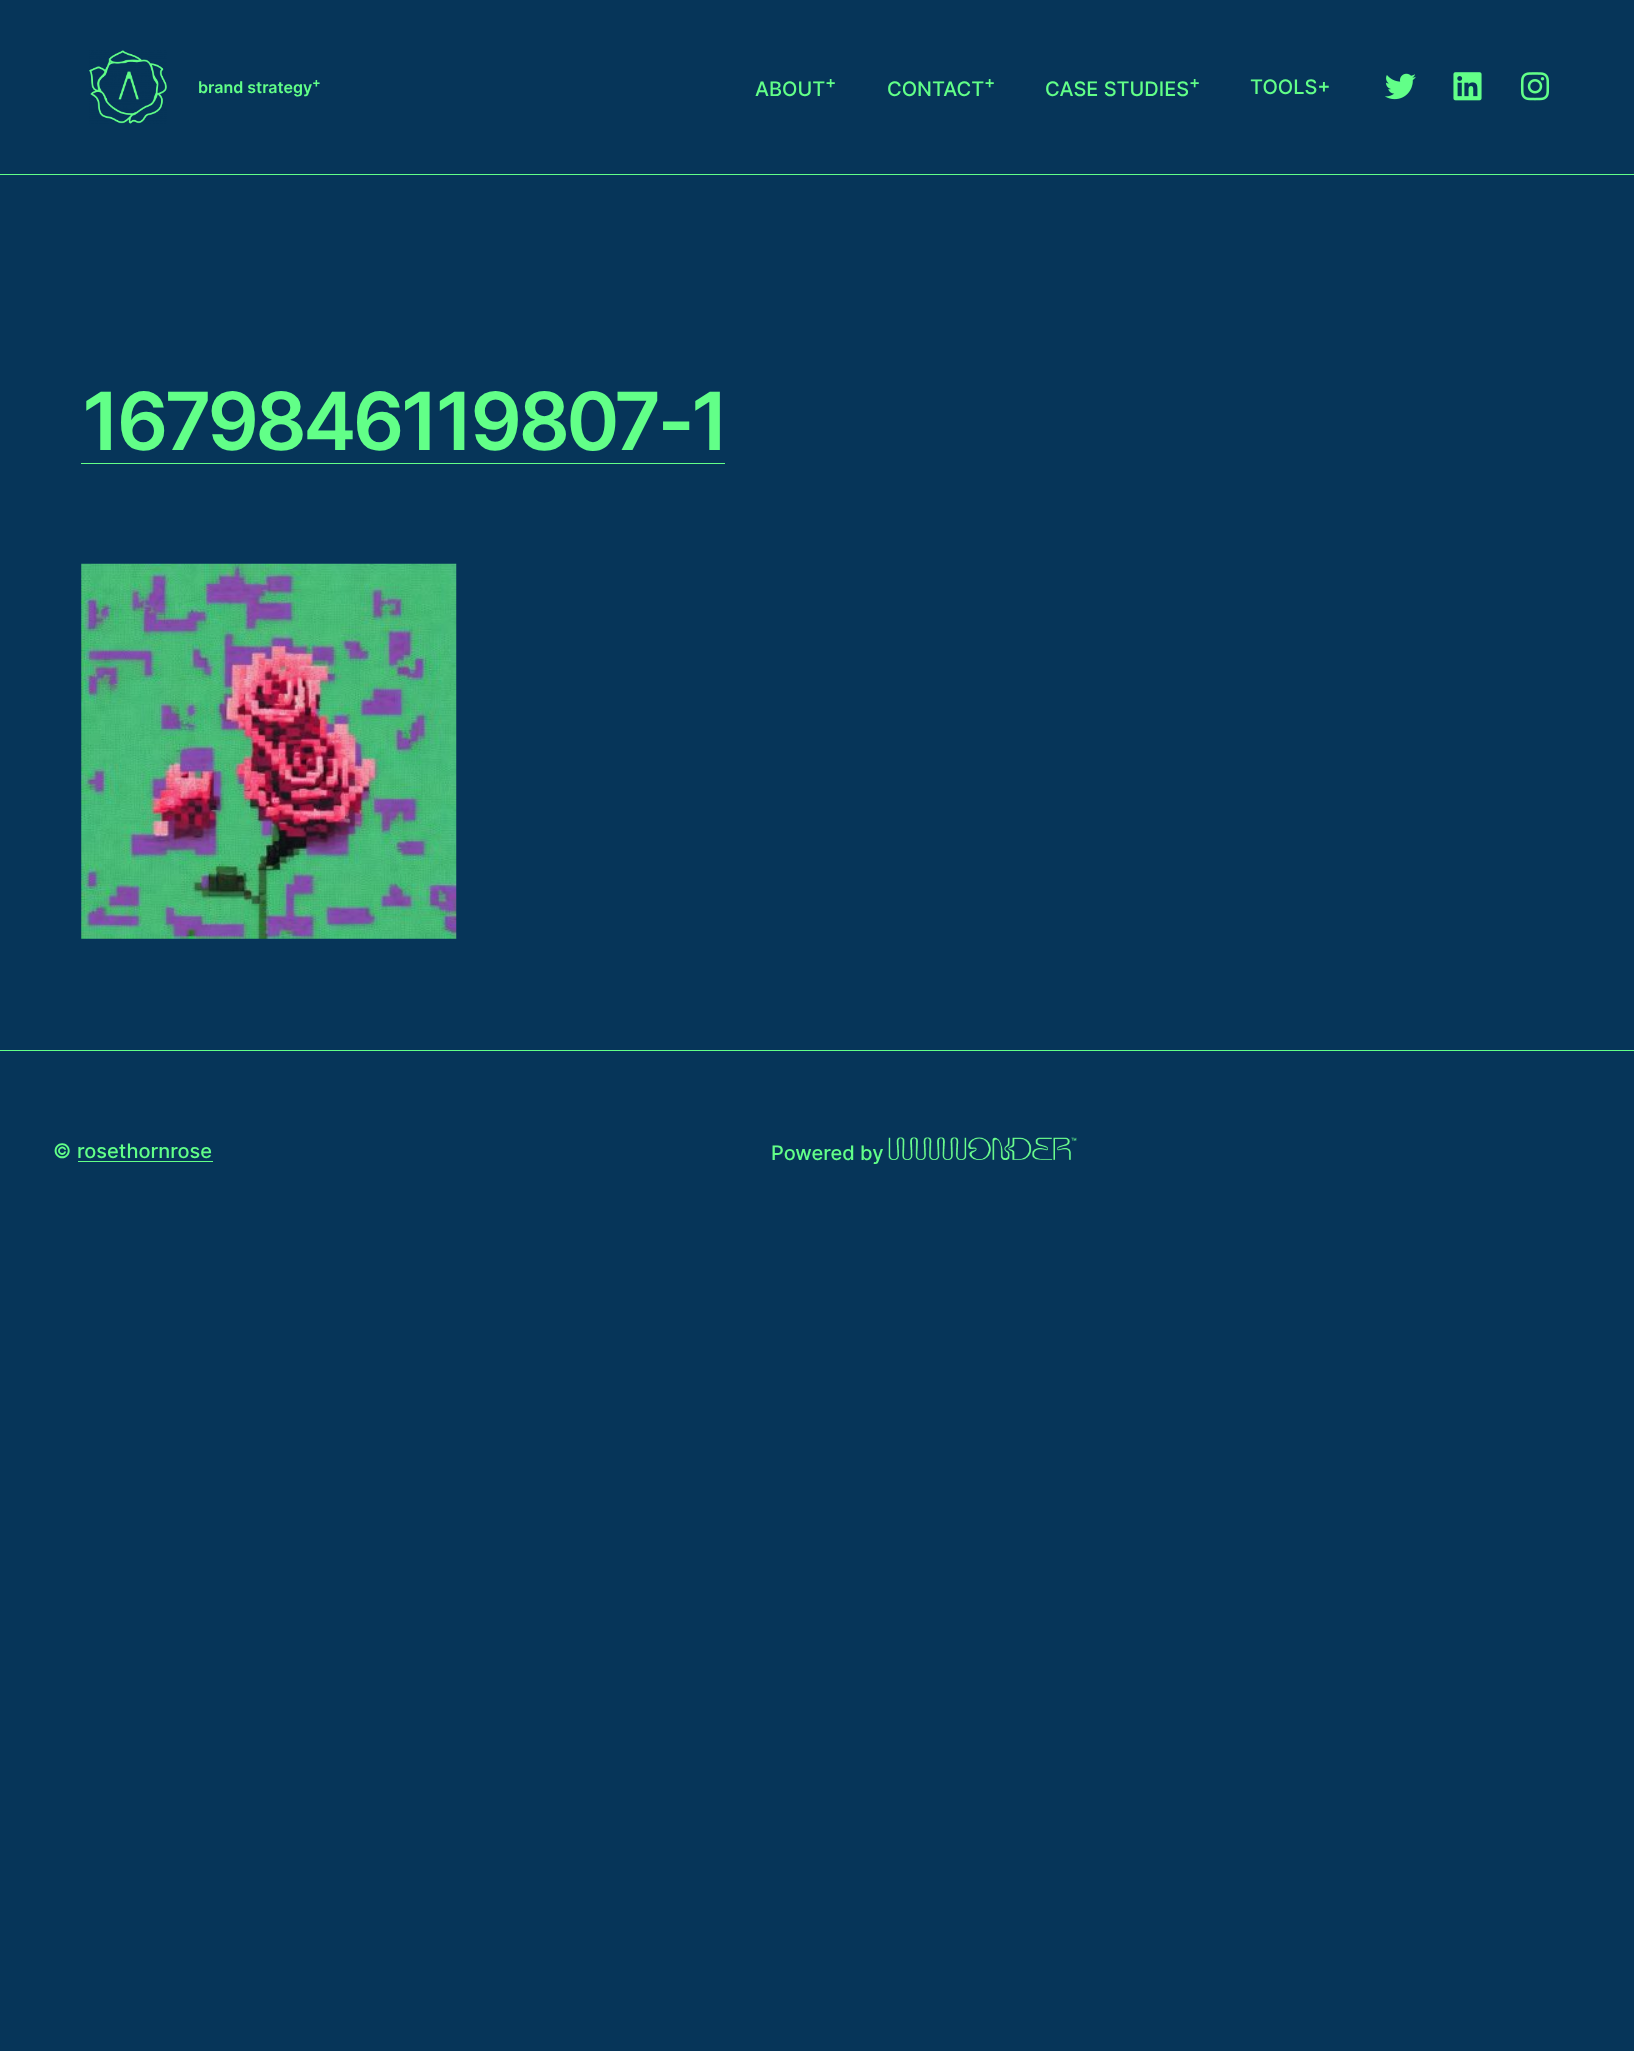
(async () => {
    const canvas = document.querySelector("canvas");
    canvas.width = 1634;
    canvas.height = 2051;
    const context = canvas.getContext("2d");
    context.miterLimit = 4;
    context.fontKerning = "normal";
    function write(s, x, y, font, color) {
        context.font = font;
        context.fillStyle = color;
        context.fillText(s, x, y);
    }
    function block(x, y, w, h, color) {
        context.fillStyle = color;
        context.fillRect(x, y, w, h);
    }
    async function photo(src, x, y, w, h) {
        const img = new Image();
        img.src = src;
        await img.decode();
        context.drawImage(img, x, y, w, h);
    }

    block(0, 0, 1634, 2051, "rgb(6, 53, 89)");
    block(0, 174, 1634, 1, "rgb(98, 255, 136)");
    await photo("media/1.png", 89, 50, 78, 74);
    write("brand strategy", 198, 93, "600 16px Inter", "rgb(98, 255, 136)");
    write("+", 312, 87, "600 13px Inter", "rgb(98, 255, 136)");
    write("ABOUT", 755, 96, "500 20px Inter", "rgb(98, 255, 136)");
    write("+", 825, 88, "500 17px Inter", "rgb(98, 255, 136)");
    write("CONTACT", 887, 96, "500 20px Inter", "rgb(98, 255, 136)");
    write("+", 984, 88, "500 17px Inter", "rgb(98, 255, 136)");
    write("CASE STUDIES", 1045, 96, "500 20px Inter", "rgb(98, 255, 136)");
    write("+", 1189, 88, "500 17px Inter", "rgb(98, 255, 136)");
    write("TOOLS+", 1250, 94, "500 20px Inter", "rgb(98, 255, 136)");
    await photo("media/2.png", 1385, 73, 31, 27);
    await photo("media/3.png", 1453, 72, 29, 29);
    await photo("media/4.png", 1520, 72, 30, 29);
    context.letterSpacing = "-3.75px";
    write("1679846119807-1", 82, 450, "600 80px Inter", "rgb(98, 255, 136)");
    block(81, 463, 644, 1, "rgb(98, 255, 136)");
    await photo("media/5.png", 81, 563, 376, 376);
    block(0, 1050, 1634, 1, "rgb(98, 255, 136)");
    context.letterSpacing = "0px";
    write("©", 53, 1158, "500 20px Inter", "rgb(98, 255, 136)");
    write("rosethornrose", 77, 1158, "500 20px Inter", "rgb(98, 255, 136)");
    block(78, 1161, 135, 1, "rgb(98, 255, 136)");
    write("Powered by", 771, 1160, "500 20px Inter", "rgb(98, 255, 136)");
    await photo("media/6.png", 888, 1137, 189, 23);
})();
